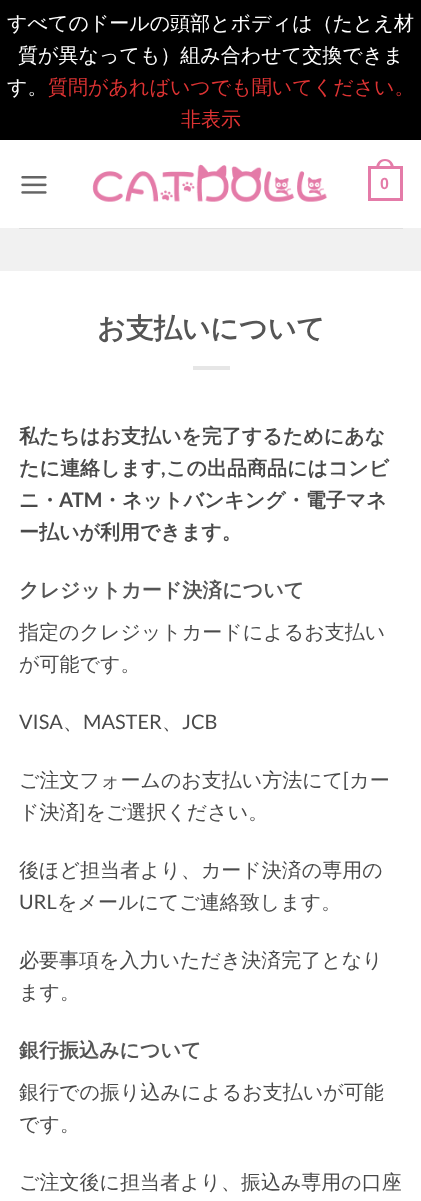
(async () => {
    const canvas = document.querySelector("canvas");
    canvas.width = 421;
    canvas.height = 1201;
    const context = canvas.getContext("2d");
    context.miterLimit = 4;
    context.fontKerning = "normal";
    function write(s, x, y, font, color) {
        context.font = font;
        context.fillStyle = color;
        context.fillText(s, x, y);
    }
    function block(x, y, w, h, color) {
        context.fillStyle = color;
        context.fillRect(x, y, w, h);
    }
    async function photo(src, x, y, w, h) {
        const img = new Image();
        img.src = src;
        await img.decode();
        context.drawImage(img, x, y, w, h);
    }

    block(0, 0, 421, 1201, "rgb(0, 0, 0)");
    write("すべてのドールの頭部とボディは（たとえ材", 7, 30, "500 20px WenQuanYi Zen Hei", "rgb(255, 255, 255)");
    write("質が異なっても）組み合わせて交換できま", 18, 62, "500 20px WenQuanYi Zen Hei", "rgb(255, 255, 255)");
    write("す。", 7, 94, "500 20px WenQuanYi Zen Hei", "rgb(255, 255, 255)");
    write("質問があればいつでも聞いてください。", 48, 94, "500 20px WenQuanYi Zen Hei", "rgb(221, 51, 51)");
    write("非表示", 181, 126, "500 20px WenQuanYi Zen Hei", "rgb(221, 51, 51)");
    block(0, 140, 421, 1061, "rgb(255, 255, 255)");
    await photo("media/1.png", 21, 176, 26, 18);
    await photo("media/2.png", 92, 164, 236, 39);
    context.strokeStyle = "rgb(228, 123, 168)";
    context.lineWidth = 3;
    context.strokeRect(369.5, 167.5, 32, 32);
    context.fillStyle = "rgb(228, 123, 168)";
    context.beginPath();
    context.moveTo(385, 159);
    context.bezierCurveTo(391, 159, 394, 163.5, 394, 169);
    context.lineTo(376, 169);
    context.bezierCurveTo(376, 163.5, 379, 159, 385, 159);
    context.closePath();
    context.moveTo(385, 161);
    context.bezierCurveTo(389.5, 161, 391, 165, 391, 169);
    context.lineTo(379, 169);
    context.bezierCurveTo(379, 165, 380.5, 161, 385, 161);
    context.closePath();
    context.fill("evenodd");
    write("0", 380, 189, "bold 16px Liberation Sans", "rgb(228, 123, 168)");
    block(0, 228, 421, 43, "rgb(241, 241, 241)");
    block(19, 228, 384, 1, "rgb(224, 224, 224)");
    write("お支払いについて", 97, 338, "bold 28px WenQuanYi Zen Hei", "rgb(85, 85, 85)");
    block(193, 366, 37, 4, "rgb(230, 230, 230)");
    write("私たちはお支払いを完了するためにあな", 19, 443, "bold 20px WenQuanYi Zen Hei", "rgb(74, 74, 74)");
    write("たに連絡します", 19, 475, "bold 20px WenQuanYi Zen Hei", "rgb(74, 74, 74)");
    write(",", 161, 475, "bold 20px Lato", "rgb(74, 74, 74)");
    write("この出品商品にはコンビ", 166, 475, "bold 20px WenQuanYi Zen Hei", "rgb(74, 74, 74)");
    write("ニ・", 19, 507, "bold 20px WenQuanYi Zen Hei", "rgb(74, 74, 74)");
    write("ATM", 59, 507, "bold 20px Lato", "rgb(74, 74, 74)");
    write("・ネットバンキング・電子マネ", 102, 507, "bold 20px WenQuanYi Zen Hei", "rgb(74, 74, 74)");
    write("ー払いが利用できます。", 19, 539, "bold 20px WenQuanYi Zen Hei", "rgb(74, 74, 74)");
    write("クレジットカード決済について", 19, 597, "bold 20px WenQuanYi Zen Hei", "rgb(85, 85, 85)");
    write("指定のクレジットカードによるお支払い", 19, 639, "500 20px WenQuanYi Zen Hei", "rgb(74, 74, 74)");
    write("が可能です。", 19, 671, "500 20px WenQuanYi Zen Hei", "rgb(74, 74, 74)");
    write("VISA", 19, 729, "20px Lato", "rgb(74, 74, 74)");
    write("、", 63, 729, "500 20px WenQuanYi Zen Hei", "rgb(74, 74, 74)");
    write("MASTER", 83, 729, "20px Lato", "rgb(74, 74, 74)");
    write("、", 162, 729, "500 20px WenQuanYi Zen Hei", "rgb(74, 74, 74)");
    write("JCB", 182, 729, "20px Lato", "rgb(74, 74, 74)");
    write("ご注文フォームのお支払い方法にて カー", 19, 787, "500 20px WenQuanYi Zen Hei", "rgb(74, 74, 74)");
    write("[", 343, 787, "20px Lato", "rgb(74, 74, 74)");
    write("ド決済 をご選択ください。", 19, 819, "500 20px WenQuanYi Zen Hei", "rgb(74, 74, 74)");
    write("]", 79, 819, "20px Lato", "rgb(74, 74, 74)");
    write("後ほど担当者より、カード決済の専用の", 19, 877, "500 20px WenQuanYi Zen Hei", "rgb(74, 74, 74)");
    write("URL", 19, 909, "20px Lato", "rgb(74, 74, 74)");
    write("をメールにてご連絡致します。", 57, 909, "500 20px WenQuanYi Zen Hei", "rgb(74, 74, 74)");
    write("必要事項を入力いただき決済完了となり", 19, 967, "500 20px WenQuanYi Zen Hei", "rgb(74, 74, 74)");
    write("ます。", 19, 999, "500 20px WenQuanYi Zen Hei", "rgb(74, 74, 74)");
    write("銀行振込みについて", 19, 1057, "bold 20px WenQuanYi Zen Hei", "rgb(85, 85, 85)");
    write("銀行での振り込みによるお支払いが可能", 19, 1099, "500 20px WenQuanYi Zen Hei", "rgb(74, 74, 74)");
    write("です。", 19, 1131, "500 20px WenQuanYi Zen Hei", "rgb(74, 74, 74)");
    write("ご注文後に担当者より、振込み専用の口座", 19, 1189, "500 20px WenQuanYi Zen Hei", "rgb(74, 74, 74)");
})();
